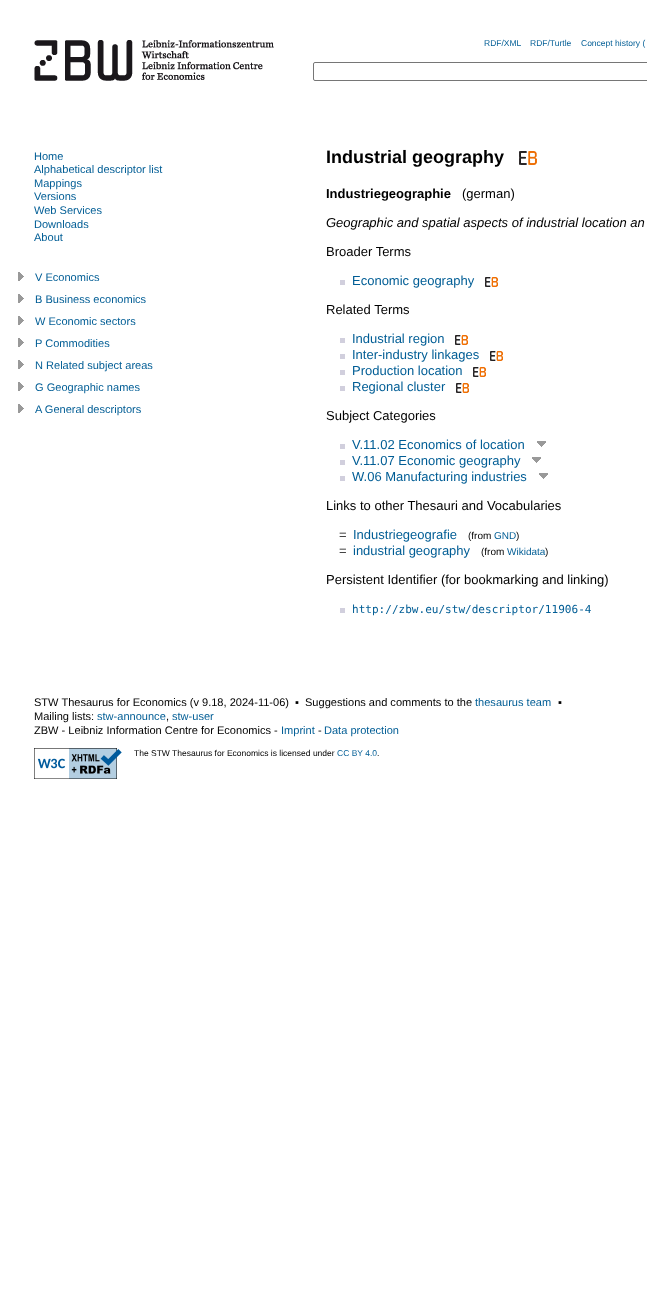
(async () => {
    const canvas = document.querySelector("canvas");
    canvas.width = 647;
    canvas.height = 1290;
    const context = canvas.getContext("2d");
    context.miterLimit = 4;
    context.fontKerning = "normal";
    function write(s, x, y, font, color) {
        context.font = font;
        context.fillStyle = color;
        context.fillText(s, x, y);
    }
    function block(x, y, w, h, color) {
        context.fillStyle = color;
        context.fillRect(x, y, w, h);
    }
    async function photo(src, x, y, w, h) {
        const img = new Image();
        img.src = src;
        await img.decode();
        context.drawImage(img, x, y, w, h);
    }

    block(0, 0, 647, 1290, "rgb(255, 255, 255)");
    await photo("media/1.png", 34, 40, 240, 41);
    write("RDF/XML", 484, 46, "8.5px Liberation Sans", "rgb(0, 93, 149)");
    write("RDF/Turtle", 530, 46, "8.5px Liberation Sans", "rgb(0, 93, 149)");
    write("Concept history (", 581, 46, "8.5px Liberation Sans", "rgb(0, 93, 149)");
    context.beginPath();
    context.roundRect(313.5, 62.5, 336, 18, 1.5);
    context.strokeStyle = "rgb(118, 118, 118)";
    context.stroke();
    write("Home", 34, 160, "11.05px Liberation Sans", "rgb(0, 93, 149)");
    write("Alphabetical descriptor list", 34, 173, "11.05px Liberation Sans", "rgb(0, 93, 149)");
    write("Mappings", 34, 187, "11.05px Liberation Sans", "rgb(0, 93, 149)");
    write("Versions", 34, 200, "11.05px Liberation Sans", "rgb(0, 93, 149)");
    write("Web Services", 34, 214, "11.05px Liberation Sans", "rgb(0, 93, 149)");
    write("Downloads", 34, 228, "11.05px Liberation Sans", "rgb(0, 93, 149)");
    write("About", 34, 241, "11.05px Liberation Sans", "rgb(0, 93, 149)");
    await photo("media/2.png", 18, 272, 6, 9);
    write("V Economics", 35, 281, "11.05px Liberation Sans", "rgb(0, 93, 149)");
    await photo("media/2.png", 18, 294, 6, 9);
    write("B Business economics", 35, 303, "11.05px Liberation Sans", "rgb(0, 93, 149)");
    await photo("media/2.png", 18, 316, 6, 9);
    write("W Economic sectors", 35, 325, "11.05px Liberation Sans", "rgb(0, 93, 149)");
    await photo("media/2.png", 18, 338, 6, 9);
    write("P Commodities", 35, 347, "11.05px Liberation Sans", "rgb(0, 93, 149)");
    await photo("media/2.png", 18, 360, 6, 9);
    write("N Related subject areas", 35, 369, "11.05px Liberation Sans", "rgb(0, 93, 149)");
    await photo("media/2.png", 18, 382, 6, 9);
    write("G Geographic names", 35, 391, "11.05px Liberation Sans", "rgb(0, 93, 149)");
    await photo("media/2.png", 18, 404, 6, 9);
    write("A General descriptors", 35, 413, "11.05px Liberation Sans", "rgb(0, 93, 149)");
    write("Industrial geography", 326, 163, "bold 18px Liberation Sans", "rgb(0, 0, 0)");
    await photo("media/3.png", 519, 151, 18, 14);
    write("Industriegeographie", 326, 198, "bold 13px Liberation Sans", "rgb(0, 0, 0)");
    write("(german)", 462, 198, "13px Liberation Sans", "rgb(0, 0, 0)");
    write("Geographic and spatial aspects of industrial location an", 326, 227, "italic 13px Liberation Sans", "rgb(0, 0, 0)");
    write("Broader Terms", 326, 256, "13px Liberation Sans", "rgb(0, 0, 0)");
    block(340, 280, 5, 5, "rgb(209, 207, 221)");
    write("Economic geography", 352, 285, "13px Liberation Sans", "rgb(0, 93, 149)");
    await photo("media/4.png", 485, 277, 13, 10);
    write("Related Terms", 326, 314, "13px Liberation Sans", "rgb(0, 0, 0)");
    block(340, 338, 5, 5, "rgb(209, 207, 221)");
    write("Industrial region", 352, 343, "13px Liberation Sans", "rgb(0, 93, 149)");
    await photo("media/4.png", 455, 335, 13, 10);
    block(340, 354, 5, 5, "rgb(209, 207, 221)");
    write("Inter-industry linkages", 352, 359, "13px Liberation Sans", "rgb(0, 93, 149)");
    await photo("media/4.png", 490, 351, 13, 10);
    block(340, 370, 5, 5, "rgb(209, 207, 221)");
    write("Production location", 352, 375, "13px Liberation Sans", "rgb(0, 93, 149)");
    await photo("media/4.png", 473, 367, 13, 10);
    block(340, 386, 5, 5, "rgb(209, 207, 221)");
    write("Regional cluster", 352, 391, "13px Liberation Sans", "rgb(0, 93, 149)");
    await photo("media/4.png", 456, 383, 13, 10);
    write("Subject Categories", 326, 420, "13px Liberation Sans", "rgb(0, 0, 0)");
    block(340, 444, 5, 5, "rgb(209, 207, 221)");
    write("V.11.02 Economics of location", 352, 449, "13px Liberation Sans", "rgb(0, 93, 149)");
    await photo("media/5.png", 537, 441, 9, 6);
    block(340, 460, 5, 5, "rgb(209, 207, 221)");
    write("V.11.07 Economic geography", 352, 465, "13px Liberation Sans", "rgb(0, 93, 149)");
    await photo("media/5.png", 532, 457, 9, 6);
    block(340, 476, 5, 5, "rgb(209, 207, 221)");
    write("W.06 Manufacturing industries", 352, 481, "13px Liberation Sans", "rgb(0, 93, 149)");
    await photo("media/5.png", 539, 473, 9, 6);
    write("Links to other Thesauri and Vocabularies", 326, 510, "13px Liberation Sans", "rgb(0, 0, 0)");
    write("=", 339, 539, "13px Liberation Sans", "rgb(0, 0, 0)");
    write("Industriegeografie", 353, 539, "13px Liberation Sans", "rgb(0, 93, 149)");
    write("(from", 468, 539, "10px Liberation Sans", "rgb(0, 0, 0)");
    write("GND", 494, 539, "10px Liberation Sans", "rgb(0, 93, 149)");
    write(")", 516, 539, "10px Liberation Sans", "rgb(0, 0, 0)");
    write("=", 339, 555, "13px Liberation Sans", "rgb(0, 0, 0)");
    write("industrial geography", 353, 555, "13px Liberation Sans", "rgb(0, 93, 149)");
    write("(from", 481, 555, "10px Liberation Sans", "rgb(0, 0, 0)");
    write("Wikidata", 507, 555, "10px Liberation Sans", "rgb(0, 93, 149)");
    write(")", 545, 555, "10px Liberation Sans", "rgb(0, 0, 0)");
    write("Persistent Identifier (for bookmarking and linking)", 326, 584, "13px Liberation Sans", "rgb(0, 0, 0)");
    block(340, 608, 5, 5, "rgb(209, 207, 221)");
    write("http://zbw.eu/stw/descriptor/11906-4", 352, 613, "11.05px DejaVu Sans Mono", "rgb(0, 93, 149)");
    write("STW Thesaurus for Economics (v 9.18, 2024-11-06)", 34, 706, "11.05px Liberation Sans", "rgb(0, 0, 0)");
    write("▪", 295, 706, "11.05px Liberation Sans", "rgb(0, 0, 0)");
    write("Suggestions and comments to the", 305, 706, "11.05px Liberation Sans", "rgb(0, 0, 0)");
    write("thesaurus team", 475, 706, "11.05px Liberation Sans", "rgb(0, 93, 149)");
    write("▪", 558, 706, "11.05px Liberation Sans", "rgb(0, 0, 0)");
    write("Mailing lists:", 34, 720, "11.05px Liberation Sans", "rgb(0, 0, 0)");
    write("stw-announce", 97, 720, "11.05px Liberation Sans", "rgb(0, 93, 149)");
    write(",", 166, 720, "11.05px Liberation Sans", "rgb(0, 0, 0)");
    write("stw-user", 172, 720, "11.05px Liberation Sans", "rgb(0, 93, 149)");
    write("ZBW - Leibniz Information Centre for Economics -", 34, 734, "11.05px Liberation Sans", "rgb(0, 0, 0)");
    write("Imprint", 281, 734, "11.05px Liberation Sans", "rgb(0, 93, 149)");
    write("-", 318, 734, "11.05px Liberation Sans", "rgb(0, 0, 0)");
    write("Data protection", 324, 734, "11.05px Liberation Sans", "rgb(0, 93, 149)");
    await photo("media/6.png", 34, 748, 88, 31);
    write("The STW Thesaurus for Economics is licensed under", 134, 756, "8.5px Liberation Sans", "rgb(0, 0, 0)");
    write("CC BY 4.0", 337, 756, "8.5px Liberation Sans", "rgb(0, 93, 149)");
    write(".", 377, 756, "8.5px Liberation Sans", "rgb(0, 0, 0)");
})();
